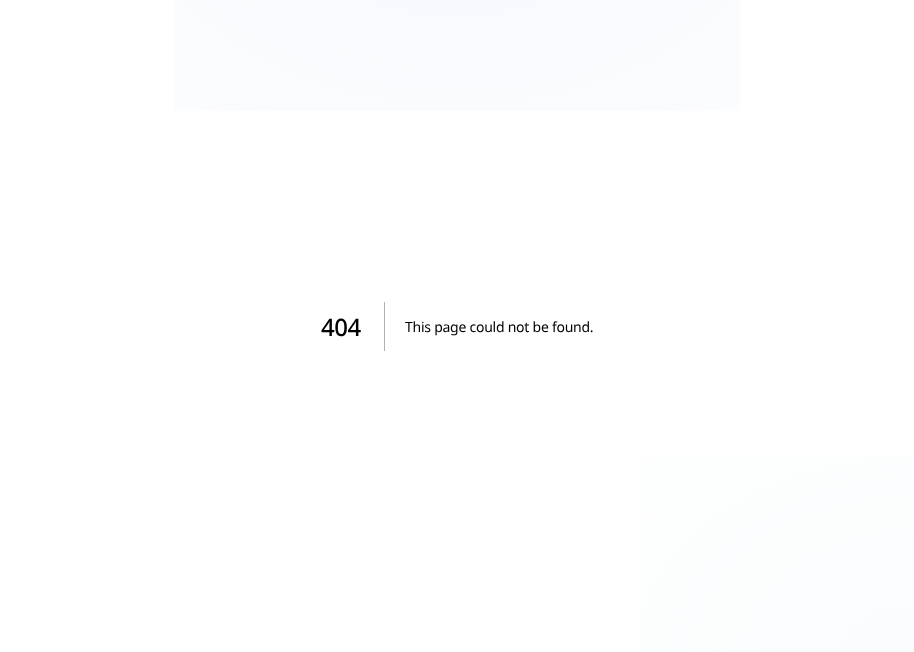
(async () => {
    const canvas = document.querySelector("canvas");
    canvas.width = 914;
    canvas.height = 652;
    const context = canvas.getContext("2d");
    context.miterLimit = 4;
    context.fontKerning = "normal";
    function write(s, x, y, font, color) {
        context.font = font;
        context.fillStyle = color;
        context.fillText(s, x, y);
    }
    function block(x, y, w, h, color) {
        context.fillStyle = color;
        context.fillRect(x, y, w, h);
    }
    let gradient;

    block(0, 0, 914, 652, "rgb(255, 255, 255)");
    gradient = context.createRadialGradient(914, 913.8, 0, 914, 913.8, 548);
    gradient.addColorStop(0, "rgb(250, 252, 253)");
    gradient.addColorStop(1, "rgb(255, 255, 255)");
    context.fillStyle = gradient;
    context.beginPath();
    context.rect(639, 456, 275, 196);
    context.save();
    context.clip();
    context.scale(1, 391 / 548);
    context.fillRect(0, 0, 914, 914);
    context.restore();
    gradient = context.createRadialGradient(457, -182.05, 0, 457, -182.05, 731);
    gradient.addColorStop(0, "rgba(0, 70, 190, 0.04)");
    gradient.addColorStop(1, "rgba(0, 70, 190, 0)");
    context.fillStyle = gradient;
    context.beginPath();
    context.rect(174, 0, 566, 111);
    context.save();
    context.clip();
    context.scale(1, 522 / 731);
    context.fillRect(0, 0, 914, 914);
    context.restore();
    block(384, 302, 1, 49, "rgb(178, 178, 178)");
    context.letterSpacing = "-0.5px";
    write("404", 321, 336, "500 24px Noto Sans", "rgb(0, 0, 0)");
    context.letterSpacing = "-0.25px";
    write("This page could not be found.", 405, 332, "14px Noto Sans", "rgb(0, 0, 0)");
})();
